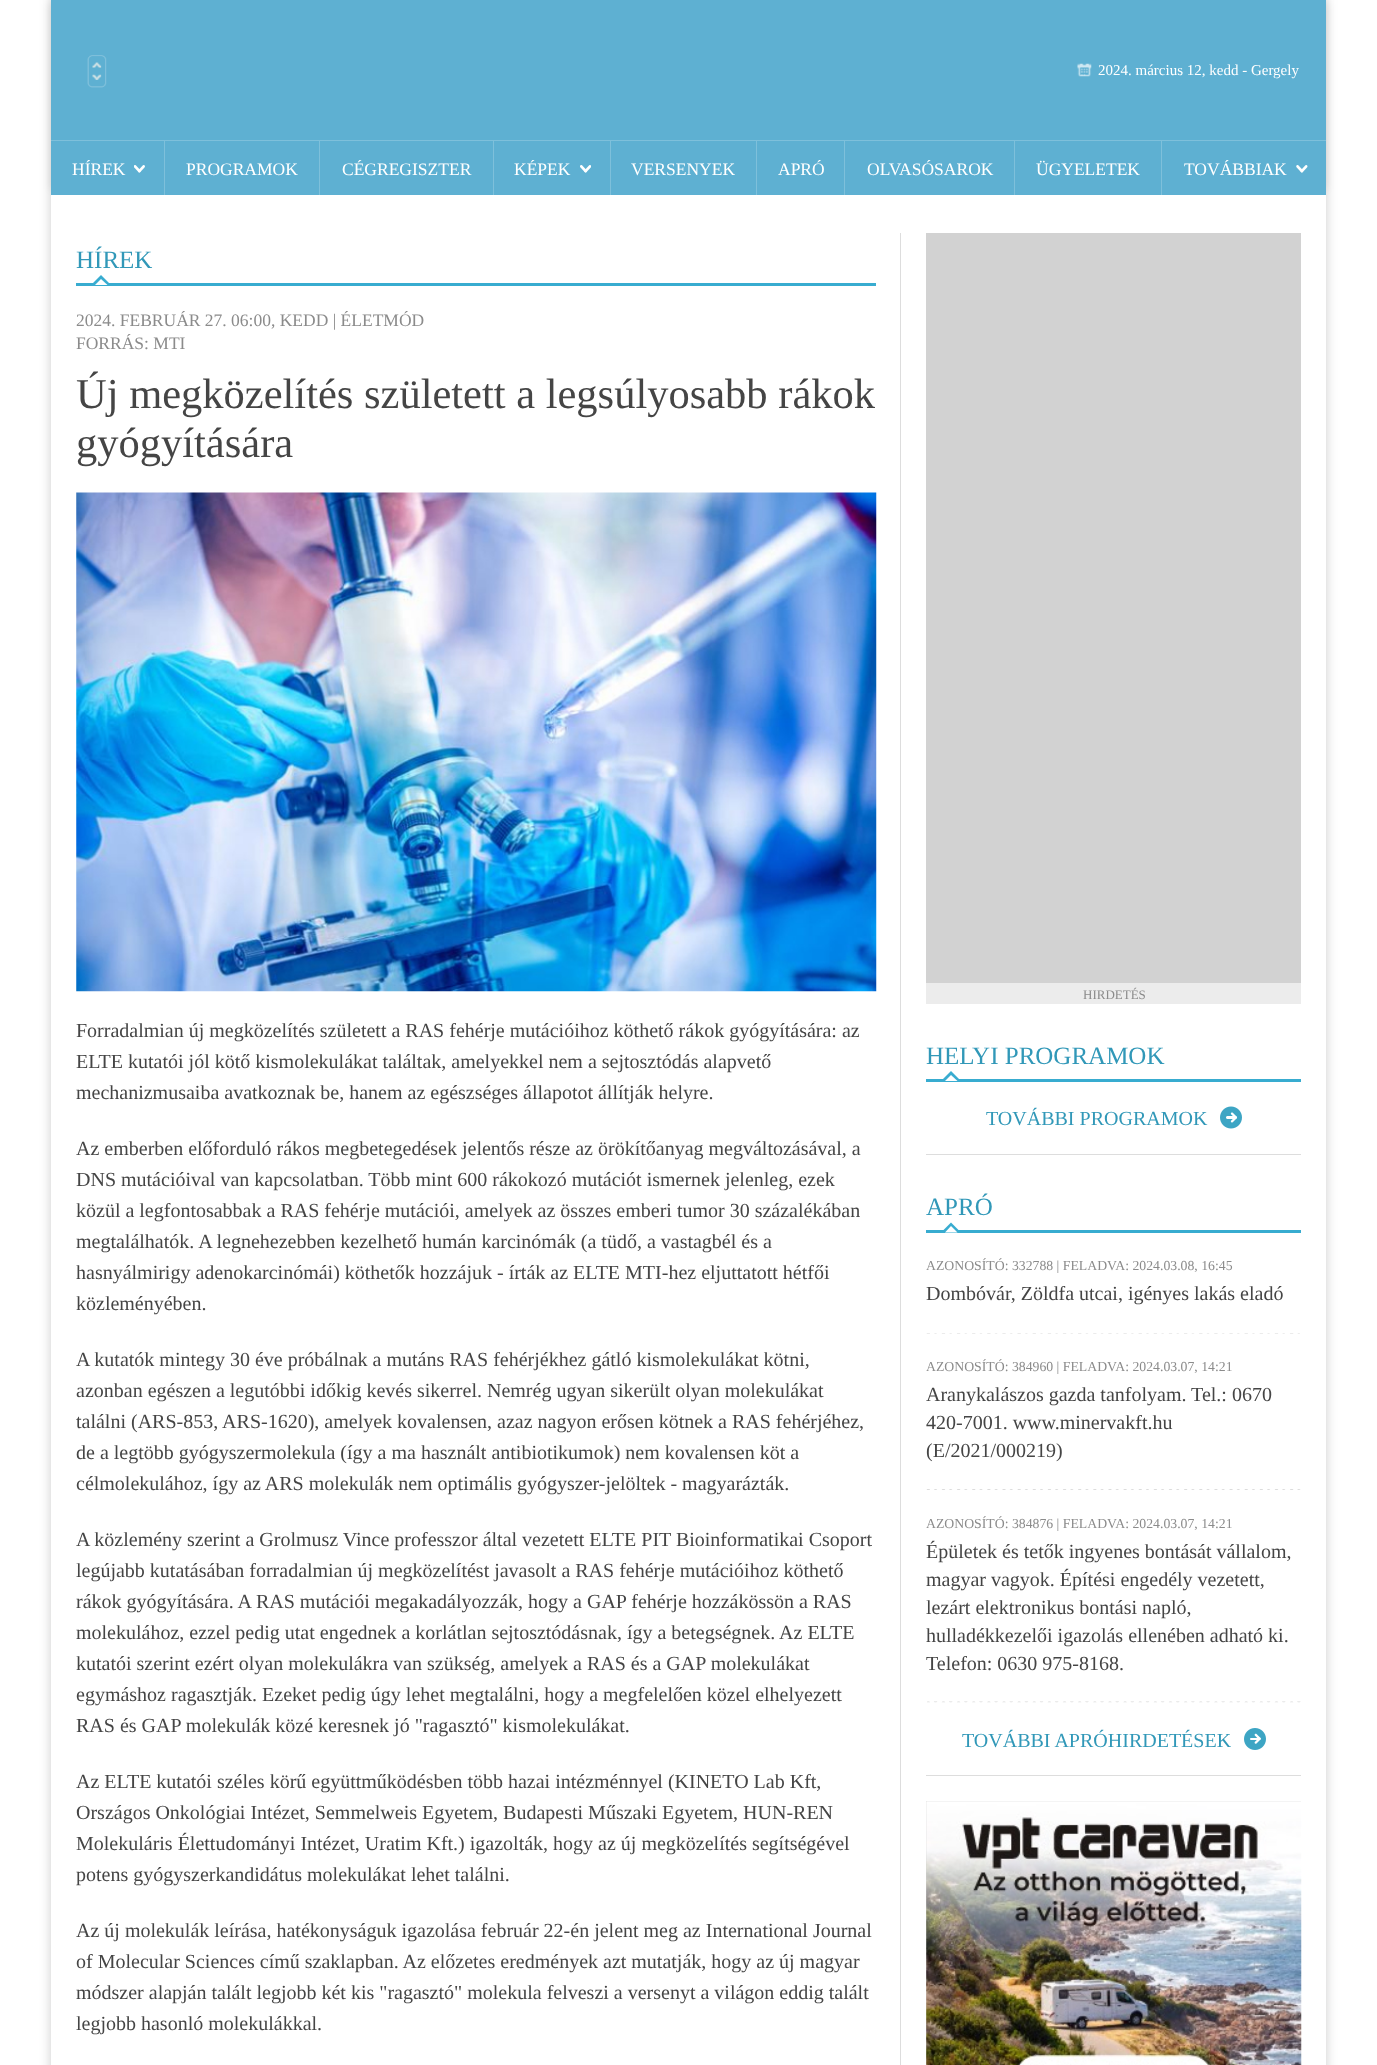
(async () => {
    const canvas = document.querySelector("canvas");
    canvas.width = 1377;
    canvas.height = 2065;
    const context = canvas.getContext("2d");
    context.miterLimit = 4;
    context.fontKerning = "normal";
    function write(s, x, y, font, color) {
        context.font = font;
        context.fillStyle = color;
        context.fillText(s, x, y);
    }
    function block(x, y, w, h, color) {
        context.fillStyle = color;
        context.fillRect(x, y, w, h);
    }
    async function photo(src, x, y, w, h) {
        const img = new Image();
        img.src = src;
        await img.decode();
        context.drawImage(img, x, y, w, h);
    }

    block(0, 0, 1377, 2065, "rgb(255, 255, 255)");
    context.fillStyle = "rgba(0, 0, 0, 0.2)";
    context.filter = "blur(6px)";
    context.beginPath();
    context.rect(51, 0, 1275, 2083);
    context.fill();
    context.filter = "none";
    context.fillStyle = "rgba(0, 0, 0, 0.09)";
    context.filter = "blur(4.5px)";
    context.beginPath();
    context.rect(51, -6, 1275, 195);
    context.fill();
    context.filter = "none";
    block(51, 0, 1275, 195, "rgb(94, 176, 210)");
    await photo("media/1.png", 87, 55, 20, 33);
    await photo("media/2.png", 1077, 63, 15, 14);
    write("2024. március 12, kedd - Gergely", 1098, 75, "15px Liberation Serif", "rgb(255, 255, 255)");
    block(51, 140, 1275, 1, "rgb(126, 192, 219)");
    block(164, 141, 1, 54, "rgb(126, 192, 219)");
    await photo("media/3.png", 134, 165, 11, 8);
    write("HÍREK", 72, 175, "17.5px Liberation Serif", "rgb(255, 255, 255)");
    block(319, 141, 1, 54, "rgb(126, 192, 219)");
    write("PROGRAMOK", 186, 175, "17.5px Liberation Serif", "rgb(255, 255, 255)");
    block(493, 141, 1, 54, "rgb(126, 192, 219)");
    write("CÉGREGISZTER", 342, 175, "17.5px Liberation Serif", "rgb(255, 255, 255)");
    block(610, 141, 1, 54, "rgb(126, 192, 219)");
    await photo("media/4.png", 580, 165, 11, 8);
    write("KÉPEK", 514, 175, "17.5px Liberation Serif", "rgb(255, 255, 255)");
    block(756, 141, 1, 54, "rgb(126, 192, 219)");
    write("VERSENYEK", 631, 175, "17.5px Liberation Serif", "rgb(255, 255, 255)");
    block(844, 141, 1, 54, "rgb(126, 192, 219)");
    write("APRÓ", 778, 175, "17.5px Liberation Serif", "rgb(255, 255, 255)");
    block(1014, 141, 1, 54, "rgb(126, 192, 219)");
    write("OLVASÓSAROK", 867, 175, "17.5px Liberation Serif", "rgb(255, 255, 255)");
    block(1161, 141, 1, 54, "rgb(126, 192, 219)");
    write("ÜGYELETEK", 1036, 175, "17.5px Liberation Serif", "rgb(255, 255, 255)");
    await photo("media/5.png", 1296, 165, 12, 8);
    write("TOVÁBBIAK", 1184, 175, "17.5px Liberation Serif", "rgb(255, 255, 255)");
    block(51, 195, 1275, 1870, "rgb(255, 255, 255)");
    block(900, 233, 1, 1832, "rgb(221, 221, 221)");
    block(76, 283, 800, 3, "rgb(56, 172, 208)");
    write("HÍREK", 76, 268, "25px Liberation Serif", "rgb(49, 152, 184)");
    context.fillStyle = "rgb(56, 172, 208)";
    context.beginPath();
    context.moveTo(111, 285);
    context.lineTo(91, 285);
    context.lineTo(101, 275);
    context.closePath();
    context.fill();
    context.fillStyle = "rgb(255, 255, 255)";
    context.beginPath();
    context.moveTo(107.5, 285);
    context.lineTo(95, 285);
    context.lineTo(101, 279);
    context.closePath();
    context.fill();
    write("2024. FEBRUÁR 27. 06:00, KEDD | ÉLETMÓD", 76, 326, "17.5px Liberation Serif", "rgb(139, 139, 139)");
    write("FORRÁS: MTI", 76, 349, "17.5px Liberation Serif", "rgb(139, 139, 139)");
    write("Új megközelítés született a legsúlyosabb rákok", 76, 408, "42.5px Liberation Serif", "rgb(69, 69, 69)");
    write("gyógyítására", 76, 457, "42.5px Liberation Serif", "rgb(69, 69, 69)");
    await photo("media/6.png", 76, 492, 801, 500);
    write("Forradalmian új megközelítés született a RAS fehérje mutációihoz köthető rákok gyógyítására: az", 76, 1037, "20px Liberation Serif", "rgb(69, 69, 69)");
    write("ELTE kutatói jól kötő kismolekulákat találtak, amelyekkel nem a sejtosztódás alapvető", 76, 1068, "20px Liberation Serif", "rgb(69, 69, 69)");
    write("mechanizmusaiba avatkoznak be, hanem az egészséges állapotot állítják helyre.", 76, 1099, "20px Liberation Serif", "rgb(69, 69, 69)");
    write("Az emberben előforduló rákos megbetegedések jelentős része az örökítőanyag megváltozásával, a", 76, 1155, "20px Liberation Serif", "rgb(69, 69, 69)");
    write("DNS mutációival van kapcsolatban. Több mint 600 rákokozó mutációt ismernek jelenleg, ezek", 76, 1186, "20px Liberation Serif", "rgb(69, 69, 69)");
    write("közül a legfontosabbak a RAS fehérje mutációi, amelyek az összes emberi tumor 30 százalékában", 76, 1217, "20px Liberation Serif", "rgb(69, 69, 69)");
    write("megtalálhatók. A legnehezebben kezelhető humán karcinómák (a tüdő, a vastagbél és a", 76, 1248, "20px Liberation Serif", "rgb(69, 69, 69)");
    write("hasnyálmirigy adenokarcinómái) köthetők hozzájuk - írták az ELTE MTI-hez eljuttatott hétfői", 76, 1279, "20px Liberation Serif", "rgb(69, 69, 69)");
    write("közleményében.", 76, 1310, "20px Liberation Serif", "rgb(69, 69, 69)");
    write("A kutatók mintegy 30 éve próbálnak a mutáns RAS fehérjékhez gátló kismolekulákat kötni,", 76, 1366, "20px Liberation Serif", "rgb(69, 69, 69)");
    write("azonban egészen a legutóbbi időkig kevés sikerrel. Nemrég ugyan sikerült olyan molekulákat", 76, 1397, "20px Liberation Serif", "rgb(69, 69, 69)");
    write("találni (ARS-853, ARS-1620), amelyek kovalensen, azaz nagyon erősen kötnek a RAS fehérjéhez,", 76, 1428, "20px Liberation Serif", "rgb(69, 69, 69)");
    write("de a legtöbb gyógyszermolekula (így a ma használt antibiotikumok) nem kovalensen köt a", 76, 1459, "20px Liberation Serif", "rgb(69, 69, 69)");
    write("célmolekulához, így az ARS molekulák nem optimális gyógyszer-jelöltek - magyarázták.", 76, 1490, "20px Liberation Serif", "rgb(69, 69, 69)");
    write("A közlemény szerint a Grolmusz Vince professzor által vezetett ELTE PIT Bioinformatikai Csoport", 76, 1546, "20px Liberation Serif", "rgb(69, 69, 69)");
    write("legújabb kutatásában forradalmian új megközelítést javasolt a RAS fehérje mutációihoz köthető", 76, 1577, "20px Liberation Serif", "rgb(69, 69, 69)");
    write("rákok gyógyítására. A RAS mutációi megakadályozzák, hogy a GAP fehérje hozzákössön a RAS", 76, 1608, "20px Liberation Serif", "rgb(69, 69, 69)");
    write("molekulához, ezzel pedig utat engednek a korlátlan sejtosztódásnak, így a betegségnek. Az ELTE", 76, 1639, "20px Liberation Serif", "rgb(69, 69, 69)");
    write("kutatói szerint ezért olyan molekulákra van szükség, amelyek a RAS és a GAP molekulákat", 76, 1670, "20px Liberation Serif", "rgb(69, 69, 69)");
    write("egymáshoz ragasztják. Ezeket pedig úgy lehet megtalálni, hogy a megfelelően közel elhelyezett", 76, 1701, "20px Liberation Serif", "rgb(69, 69, 69)");
    write("RAS és GAP molekulák közé keresnek jó \"ragasztó\" kismolekulákat.", 76, 1732, "20px Liberation Serif", "rgb(69, 69, 69)");
    write("Az ELTE kutatói széles körű együttműködésben több hazai intézménnyel (KINETO Lab Kft,", 76, 1788, "20px Liberation Serif", "rgb(69, 69, 69)");
    write("Országos Onkológiai Intézet, Semmelweis Egyetem, Budapesti Műszaki Egyetem, HUN-REN", 76, 1819, "20px Liberation Serif", "rgb(69, 69, 69)");
    write("Molekuláris Élettudományi Intézet, Uratim Kft.) igazolták, hogy az új megközelítés segítségével", 76, 1850, "20px Liberation Serif", "rgb(69, 69, 69)");
    write("potens gyógyszerkandidátus molekulákat lehet találni.", 76, 1881, "20px Liberation Serif", "rgb(69, 69, 69)");
    write("Az új molekulák leírása, hatékonyságuk igazolása február 22-én jelent meg az International Journal", 76, 1937, "20px Liberation Serif", "rgb(69, 69, 69)");
    write("of Molecular Sciences című szaklapban. Az előzetes eredmények azt mutatják, hogy az új magyar", 76, 1968, "20px Liberation Serif", "rgb(69, 69, 69)");
    write("módszer alapján talált legjobb két kis \"ragasztó\" molekula felveszi a versenyt a világon eddig talált", 76, 1999, "20px Liberation Serif", "rgb(69, 69, 69)");
    write("legjobb hasonló molekulákkal.", 76, 2030, "20px Liberation Serif", "rgb(69, 69, 69)");
    block(926, 233, 375, 750, "rgb(210, 210, 210)");
    block(926, 983, 375, 21, "rgb(236, 236, 236)");
    write("HIRDETÉS", 1083, 999, "13px Liberation Serif", "rgb(139, 139, 139)");
    block(926, 1079, 375, 3, "rgb(56, 172, 208)");
    write("HELYI PROGRAMOK", 926, 1064, "25px Liberation Serif", "rgb(49, 152, 184)");
    context.fillStyle = "rgb(56, 172, 208)";
    context.beginPath();
    context.moveTo(961, 1081);
    context.lineTo(941, 1081);
    context.lineTo(951, 1071);
    context.closePath();
    context.fill();
    context.fillStyle = "rgb(255, 255, 255)";
    context.beginPath();
    context.moveTo(957.5, 1081);
    context.lineTo(945, 1081);
    context.lineTo(951, 1075);
    context.closePath();
    context.fill();
    block(926, 1154, 375, 1, "rgb(221, 221, 221)");
    await photo("media/7.png", 1220, 1106, 22, 23);
    write("TOVÁBBI PROGRAMOK", 986, 1125, "20px Liberation Serif", "rgb(49, 152, 184)");
    block(926, 1230, 375, 3, "rgb(56, 172, 208)");
    write("APRÓ", 926, 1215, "25px Liberation Serif", "rgb(49, 152, 184)");
    context.fillStyle = "rgb(56, 172, 208)";
    context.beginPath();
    context.moveTo(961, 1232.5);
    context.lineTo(941, 1232.5);
    context.lineTo(951, 1222.5);
    context.closePath();
    context.fill();
    context.fillStyle = "rgb(255, 255, 255)";
    context.beginPath();
    context.moveTo(957.5, 1232.5);
    context.lineTo(945, 1232.5);
    context.lineTo(951, 1226);
    context.closePath();
    context.fill();
    await photo("media/8.png", 926, 1333, 374, 1);
    write("AZONOSÍTÓ: 332788 | FELADVA: 2024.03.08, 16:45", 926, 1270, "13.75px Liberation Serif", "rgb(139, 139, 139)");
    write("Dombóvár, Zöldfa utcai, igényes lakás eladó", 926, 1300, "20px Liberation Serif", "rgb(69, 69, 69)");
    await photo("media/9.png", 926, 1489, 375, 1);
    write("AZONOSÍTÓ: 384960 | FELADVA: 2024.03.07, 14:21", 926, 1371, "13.75px Liberation Serif", "rgb(139, 139, 139)");
    write("Aranykalászos gazda tanfolyam. Tel.: 0670", 926, 1401, "20px Liberation Serif", "rgb(69, 69, 69)");
    write("420-7001. www.minervakft.hu", 926, 1429, "20px Liberation Serif", "rgb(69, 69, 69)");
    write("(E/2021/000219)", 926, 1457, "20px Liberation Serif", "rgb(69, 69, 69)");
    await photo("media/10.png", 927, 1701, 374, 2);
    write("AZONOSÍTÓ: 384876 | FELADVA: 2024.03.07, 14:21", 926, 1528, "13.75px Liberation Serif", "rgb(139, 139, 139)");
    write("Épületek és tetők ingyenes bontását vállalom,", 926, 1558, "20px Liberation Serif", "rgb(69, 69, 69)");
    write("magyar vagyok. Építési engedély vezetett,", 926, 1586, "20px Liberation Serif", "rgb(69, 69, 69)");
    write("lezárt elektronikus bontási napló,", 926, 1614, "20px Liberation Serif", "rgb(69, 69, 69)");
    write("hulladékkezelői igazolás ellenében adható ki.", 926, 1642, "20px Liberation Serif", "rgb(69, 69, 69)");
    write("Telefon: 0630 975-8168.", 926, 1670, "20px Liberation Serif", "rgb(69, 69, 69)");
    block(926, 1775, 375, 1, "rgb(221, 221, 221)");
    await photo("media/11.png", 1244, 1728, 22, 22);
    write("TOVÁBBI APRÓHIRDETÉSEK", 962, 1747, "20px Liberation Serif", "rgb(49, 152, 184)");
    block(926, 1801, 375, 264, "rgb(210, 210, 210)");
    await photo("media/12.png", 926, 1801, 376, 264);
})();
